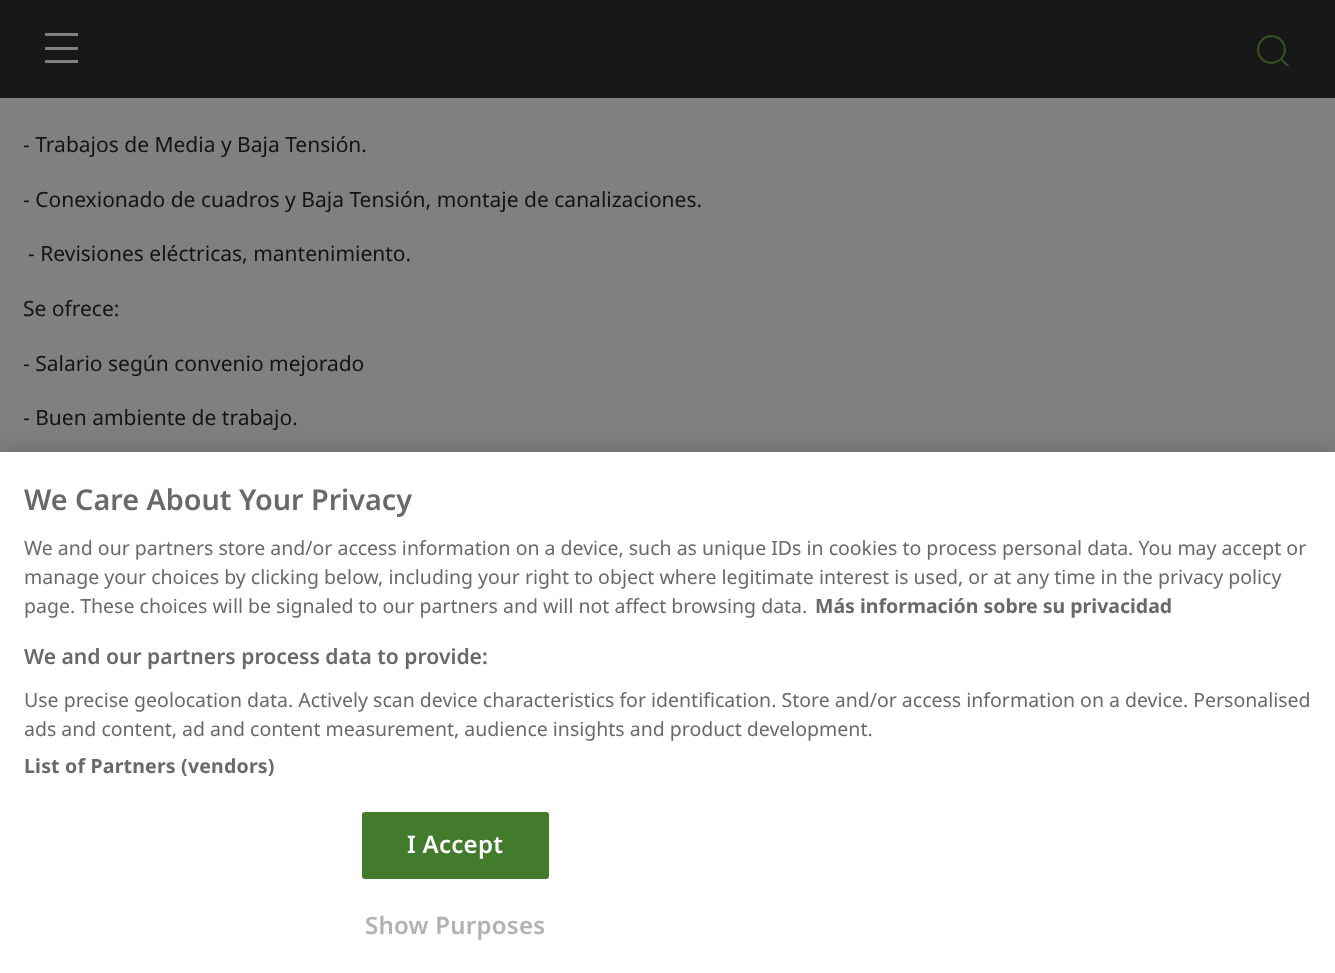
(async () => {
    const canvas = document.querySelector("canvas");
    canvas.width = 1335;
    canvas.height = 973;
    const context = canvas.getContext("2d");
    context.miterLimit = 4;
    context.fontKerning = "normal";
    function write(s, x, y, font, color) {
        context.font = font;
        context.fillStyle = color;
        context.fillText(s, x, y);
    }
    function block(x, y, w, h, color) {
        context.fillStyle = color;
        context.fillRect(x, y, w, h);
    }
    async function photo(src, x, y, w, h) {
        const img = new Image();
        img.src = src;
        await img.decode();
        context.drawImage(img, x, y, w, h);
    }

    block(0, 0, 1335, 973, "rgb(128, 128, 128)");
    block(0, 0, 1335, 98, "rgb(24, 24, 24)");
    block(45, 33, 33, 3, "rgb(128, 128, 128)");
    block(45, 47, 33, 3, "rgb(128, 128, 128)");
    block(45, 60, 33, 3, "rgb(128, 128, 128)");
    await photo("media/1.png", 1257, 35, 33, 31);
    write("- Trabajos de Media y Baja Tensión.", 23, 152, "21px Noto Sans", "rgb(19, 19, 19)");
    write("- Conexionado de cuadros y Baja Tensión, montaje de canalizaciones.", 23, 207, "21px Noto Sans", "rgb(19, 19, 19)");
    write("- Revisiones eléctricas, mantenimiento.", 28, 261, "21px Noto Sans", "rgb(19, 19, 19)");
    write("Se ofrece:", 23, 316, "21px Noto Sans", "rgb(19, 19, 19)");
    write("- Salario según convenio mejorado", 23, 371, "21px Noto Sans", "rgb(19, 19, 19)");
    write("- Buen ambiente de trabajo.", 23, 425, "21px Noto Sans", "rgb(19, 19, 19)");
    context.fillStyle = "rgba(0, 0, 0, 0.2)";
    context.filter = "blur(13.5px)";
    context.beginPath();
    context.rect(0, 452, 1335, 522);
    context.fill();
    context.filter = "none";
    block(0, 452, 1335, 521, "rgb(255, 255, 255)");
    write("We Care About Your Privacy", 24, 510, "600 28.75px Noto Sans", "rgb(105, 105, 105)");
    write("We and our partners store and/or access information on a device, such as unique IDs in cookies to process personal data. You may accept or", 24, 555, "19.5px Noto Sans", "rgb(105, 105, 105)");
    write("manage your choices by clicking below, including your right to object where legitimate interest is used, or at any time in the privacy policy", 24, 584, "19.5px Noto Sans", "rgb(105, 105, 105)");
    write("page. These choices will be signaled to our partners and will not affect browsing data.", 24, 613, "19.5px Noto Sans", "rgb(105, 105, 105)");
    write("Más información sobre su privacidad", 815, 613, "bold 19.5px Noto Sans", "rgb(105, 105, 105)");
    write("We and our partners process data to provide:", 24, 664, "600 21.1px Noto Sans", "rgb(105, 105, 105)");
    write("Use precise geolocation data. Actively scan device characteristics for identification. Store and/or access information on a device. Personalised", 24, 707, "19.5px Noto Sans", "rgb(105, 105, 105)");
    write("ads and content, ad and content measurement, audience insights and product development.", 24, 736, "19.5px Noto Sans", "rgb(105, 105, 105)");
    context.letterSpacing = "0.2px";
    write("List of Partners (vendors)", 24, 773, "bold 19.5px Noto Sans", "rgb(105, 105, 105)");
    context.fillStyle = "rgb(67, 123, 45)";
    context.beginPath();
    context.roundRect(363, 813, 185, 65, 2);
    context.fill();
    context.strokeStyle = "rgb(67, 123, 45)";
    context.lineWidth = 2;
    context.stroke();
    context.letterSpacing = "0.25px";
    write("I Accept", 407, 853, "600 24px Noto Sans", "rgb(255, 255, 255)");
    write("Show Purposes", 365, 934, "600 24px Noto Sans", "rgb(179, 177, 177)");
})();
